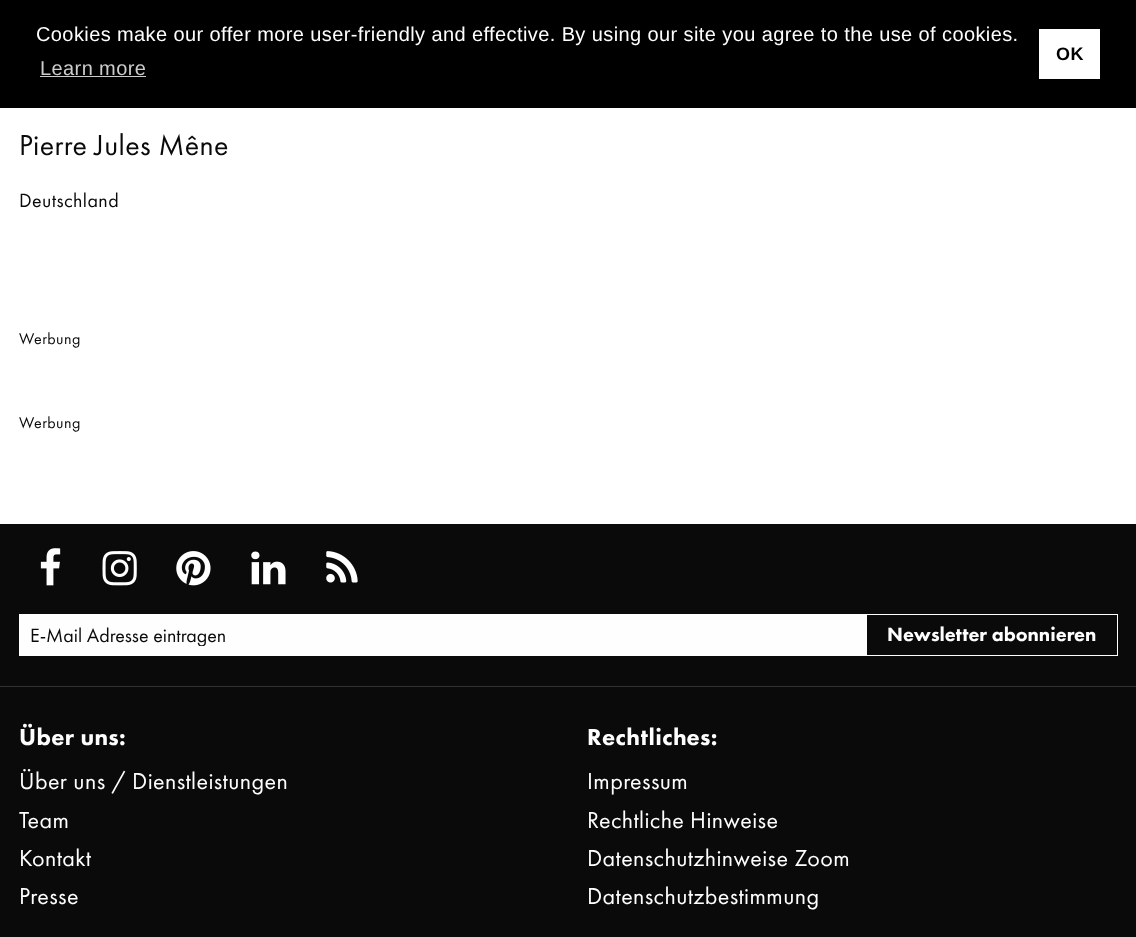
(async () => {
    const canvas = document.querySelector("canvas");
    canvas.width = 1136;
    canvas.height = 937;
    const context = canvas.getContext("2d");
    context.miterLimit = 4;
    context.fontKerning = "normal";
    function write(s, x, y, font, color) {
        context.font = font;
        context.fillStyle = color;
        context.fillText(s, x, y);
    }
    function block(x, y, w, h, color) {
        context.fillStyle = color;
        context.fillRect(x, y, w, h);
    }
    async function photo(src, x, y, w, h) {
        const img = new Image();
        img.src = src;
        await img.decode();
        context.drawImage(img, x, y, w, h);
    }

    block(0, 0, 1136, 937, "rgb(255, 255, 255)");
    block(0, 0, 1136, 108, "rgb(0, 0, 0)");
    context.letterSpacing = "0.4px";
    write("Cookies make our offer more user-friendly and effective. By using our site you agree to the use of cookies.", 36, 41, "20px Liberation Sans", "rgb(254, 254, 254)");
    write("Learn more", 40, 75, "20px Liberation Sans", "rgb(204, 204, 204)");
    block(40, 76, 106, 1, "rgb(204, 204, 204)");
    block(1039, 29, 61, 50, "rgb(255, 255, 255)");
    write("OK", 1056, 60, "bold 18px Liberation Sans", "rgb(0, 0, 0)");
    write("Pierre Jules Mêne", 19, 155, "30px Futura PT", "rgb(10, 10, 10)");
    write("Deutschland", 19, 207, "20px Futura PT", "rgb(10, 10, 10)");
    write("Werbung", 19, 344, "16px Futura PT", "rgb(10, 10, 10)");
    write("Werbung", 19, 428, "16px Futura PT", "rgb(10, 10, 10)");
    block(0, 524, 1136, 413, "rgb(10, 10, 10)");
    block(0, 686, 1136, 1, "rgb(51, 51, 51)");
    await photo("media/1.png", 40, 548, 21, 38);
    await photo("media/2.png", 102, 551, 35, 35);
    await photo("media/3.png", 176, 551, 35, 35);
    await photo("media/4.png", 251, 551, 35, 34);
    await photo("media/5.png", 326, 551, 32, 32);
    block(20, 615, 846, 40, "rgb(254, 254, 254)");
    block(19, 614, 847, 1, "rgb(254, 254, 254)");
    block(19, 655, 847, 1, "rgb(254, 254, 254)");
    block(19, 614, 1, 42, "rgb(254, 254, 254)");
    context.save();
    context.beginPath();
    context.rect(30, 623, 826, 23);
    context.clip();
    context.letterSpacing = "0px";
    write("E-Mail Adresse eintragen", 30, 642, "20px Futura PT", "rgb(10, 10, 10)");
    context.restore();
    context.strokeStyle = "rgb(254, 254, 254)";
    context.strokeRect(866.5, 614.5, 251, 41);
    context.letterSpacing = "0px";
    write("Newsletter abonnieren", 887, 641, "900 20px Futura PT", "rgb(254, 254, 254)");
    context.letterSpacing = "0.4px";
    write("Über uns:", 19, 745, "900 24px Futura PT", "rgb(254, 254, 254)");
    write("Über uns / Dienstleistungen", 19, 789, "24px Futura PT", "rgb(254, 254, 254)");
    write("Team", 19, 828, "24px Futura PT", "rgb(254, 254, 254)");
    write("Kontakt", 19, 866, "24px Futura PT", "rgb(254, 254, 254)");
    write("Presse", 19, 904, "24px Futura PT", "rgb(254, 254, 254)");
    write("Rechtliches:", 587, 745, "900 24px Futura PT", "rgb(254, 254, 254)");
    write("Impressum", 587, 789, "24px Futura PT", "rgb(254, 254, 254)");
    write("Rechtliche Hinweise", 587, 828, "24px Futura PT", "rgb(254, 254, 254)");
    write("Datenschutzhinweise Zoom", 587, 866, "24px Futura PT", "rgb(254, 254, 254)");
    write("Datenschutzbestimmung", 587, 904, "24px Futura PT", "rgb(254, 254, 254)");
})();
